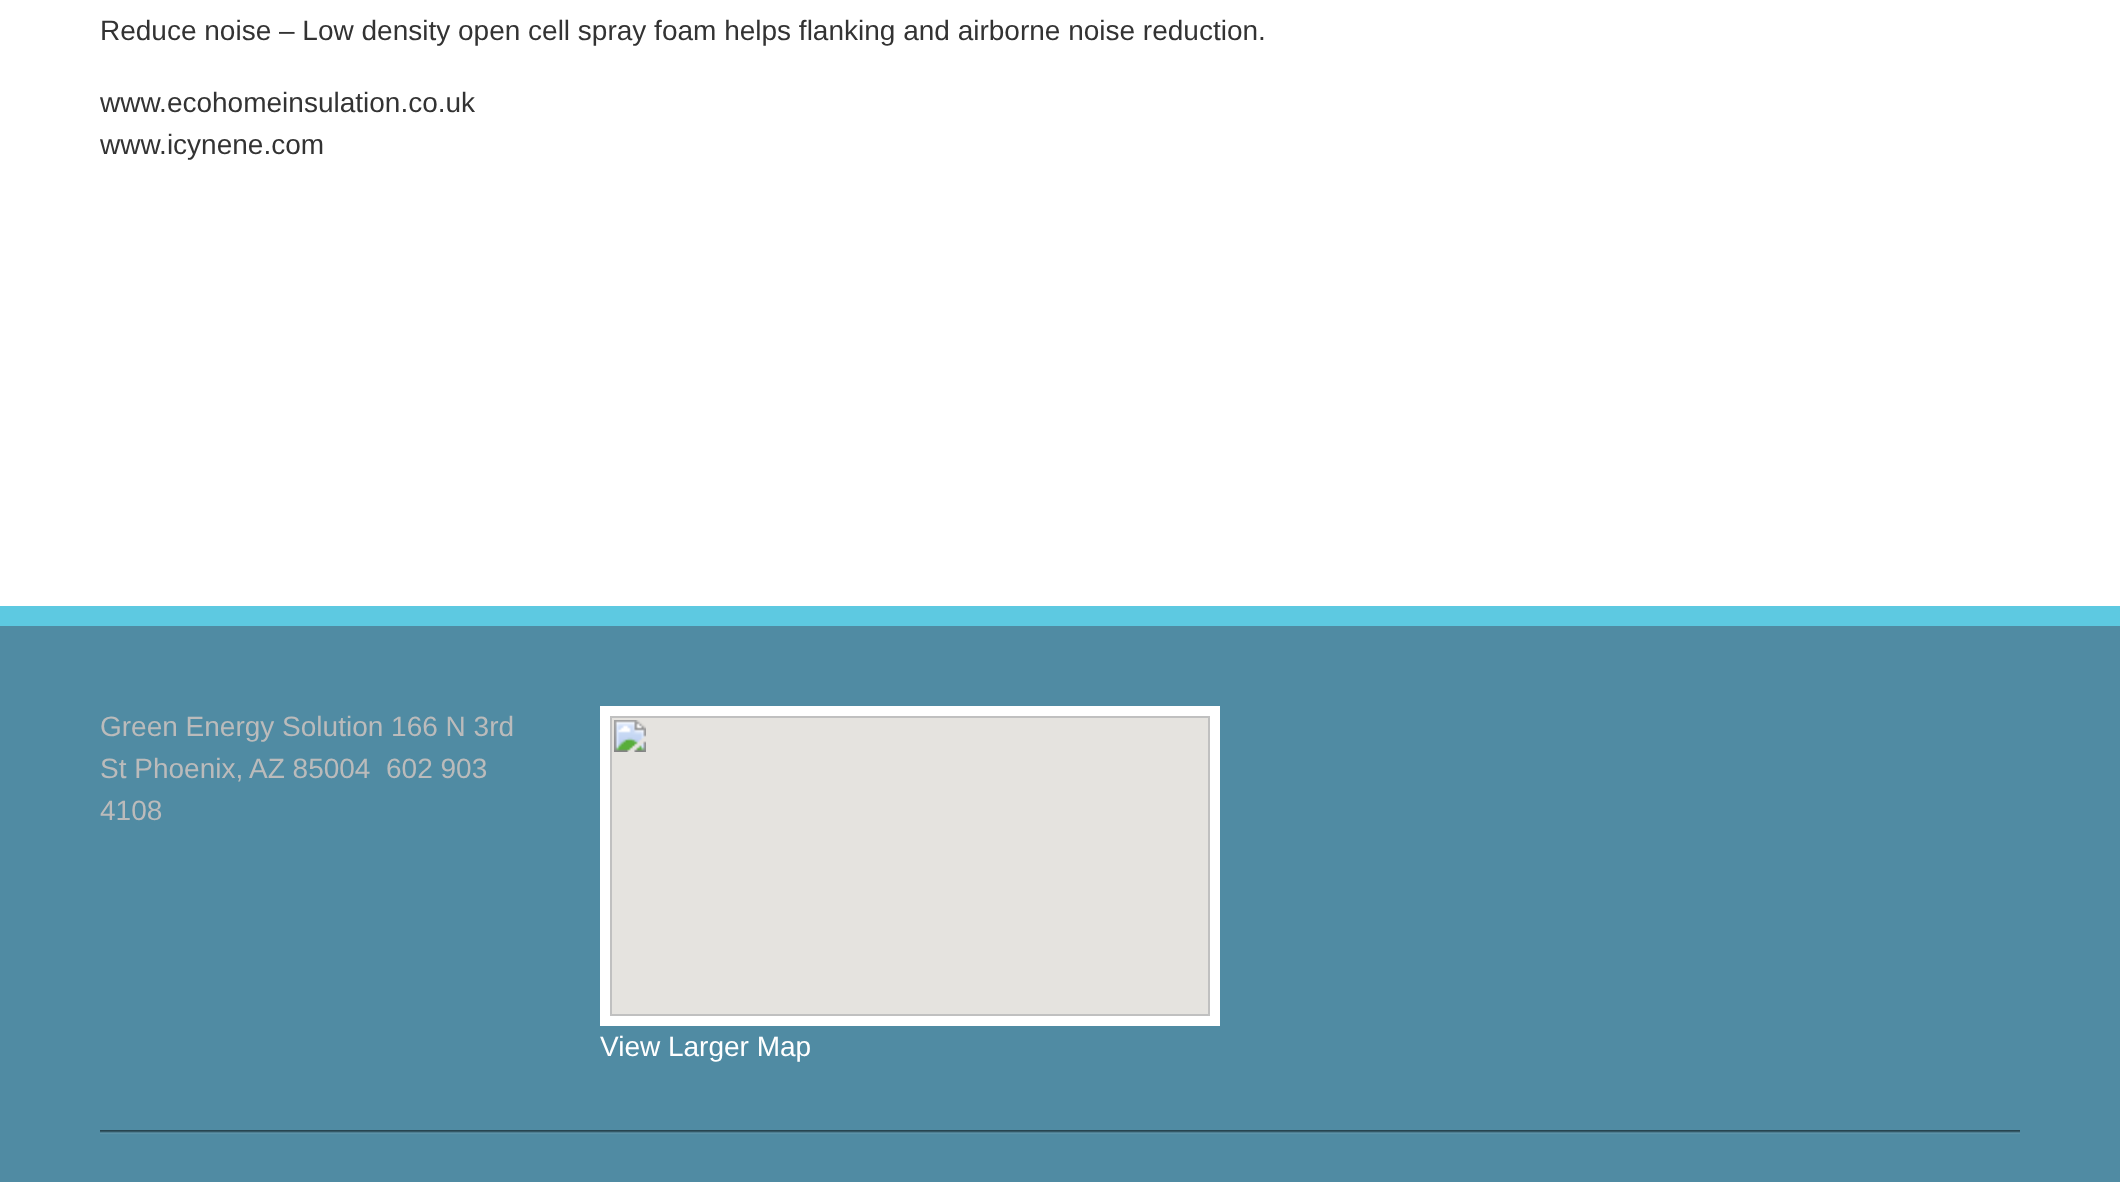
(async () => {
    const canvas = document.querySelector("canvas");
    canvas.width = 2120;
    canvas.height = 1182;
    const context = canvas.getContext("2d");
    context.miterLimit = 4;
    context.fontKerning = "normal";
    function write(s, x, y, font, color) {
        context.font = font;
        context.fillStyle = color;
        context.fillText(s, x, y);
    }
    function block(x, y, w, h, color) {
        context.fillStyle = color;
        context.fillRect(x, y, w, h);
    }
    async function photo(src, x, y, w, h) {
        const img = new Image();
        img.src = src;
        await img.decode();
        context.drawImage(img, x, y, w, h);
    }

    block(0, 0, 2120, 1182, "rgb(255, 255, 255)");
    write("Reduce noise – Low density open cell spray foam helps flanking and airborne noise reduction.", 100, 40, "28px Liberation Sans", "rgb(51, 51, 51)");
    write("www.ecohomeinsulation.co.uk", 100, 112, "28px Liberation Sans", "rgb(51, 51, 51)");
    write("www.icynene.com", 100, 154, "28px Liberation Sans", "rgb(51, 51, 51)");
    block(0, 626, 2120, 556, "rgb(80, 139, 163)");
    block(0, 606, 2120, 20, "rgb(93, 201, 225)");
    write("Green Energy Solution 166 N 3rd", 100, 736, "28px Liberation Sans", "rgb(187, 187, 187)");
    write("St Phoenix,", 100, 778, "28px Liberation Sans", "rgb(187, 187, 187)");
    write("AZ 85004", 249, 778, "28px Liberation Sans", "rgb(187, 187, 187)");
    write("602 903", 386, 778, "28px Liberation Sans", "rgb(187, 187, 187)");
    write("4108", 100, 820, "28px Liberation Sans", "rgb(187, 187, 187)");
    context.strokeStyle = "rgb(255, 255, 255)";
    context.lineWidth = 10;
    context.strokeRect(605, 711, 610, 310);
    await photo("media/1.png", 610, 716, 600, 300);
    write("View Larger Map", 600, 1056, "28px Liberation Sans", "rgb(255, 255, 255)");
    await photo("media/2.png", 100, 1130, 1920, 4);
})();
